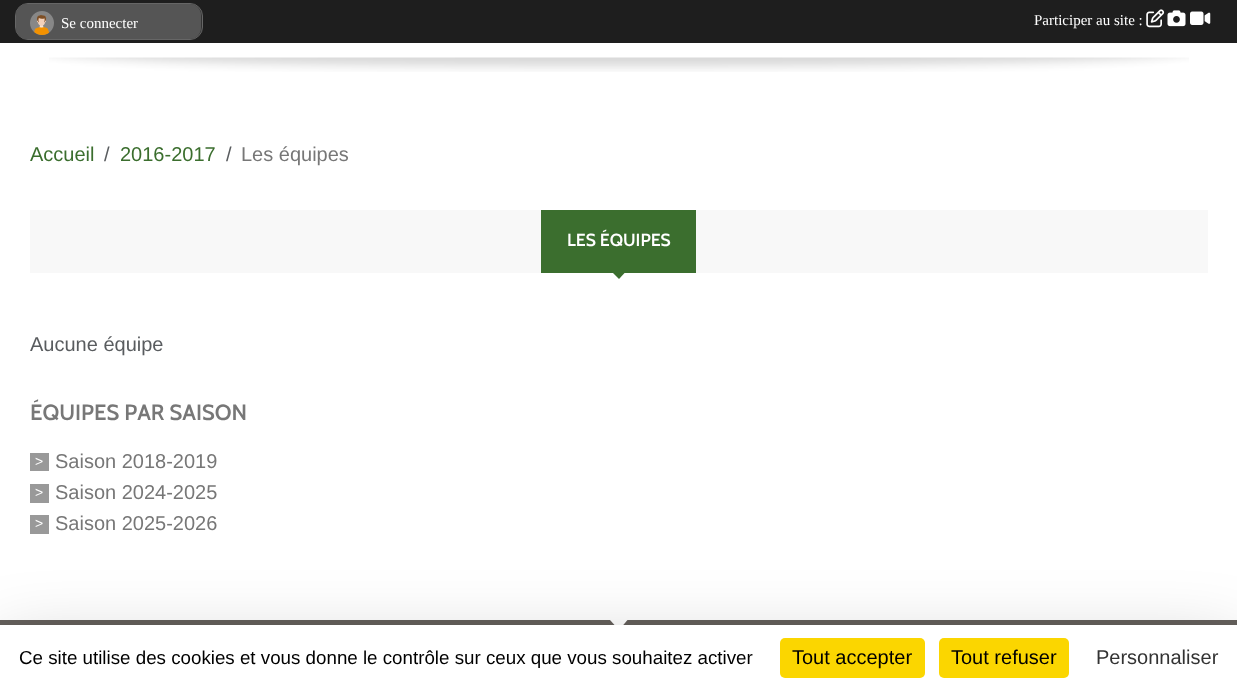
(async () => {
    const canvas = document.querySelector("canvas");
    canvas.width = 1237;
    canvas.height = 689;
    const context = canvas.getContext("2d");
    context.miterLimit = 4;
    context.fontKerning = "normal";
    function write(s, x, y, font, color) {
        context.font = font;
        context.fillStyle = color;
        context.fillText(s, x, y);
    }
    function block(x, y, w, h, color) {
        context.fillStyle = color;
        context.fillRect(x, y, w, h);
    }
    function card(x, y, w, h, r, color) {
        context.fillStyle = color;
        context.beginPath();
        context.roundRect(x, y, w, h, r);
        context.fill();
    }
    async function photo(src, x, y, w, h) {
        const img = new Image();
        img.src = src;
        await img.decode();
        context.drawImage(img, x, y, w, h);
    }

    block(0, 0, 1237, 689, "rgb(255, 255, 255)");
    block(0, 0, 1237, 43, "rgb(30, 30, 30)");
    context.fillStyle = "rgb(51, 51, 51)";
    context.beginPath();
    context.roundRect(15.5, 3.5, 187, 36, 12.5);
    context.fill();
    context.strokeStyle = "rgb(102, 102, 102)";
    context.stroke();
    card(16, 4, 185, 35, 11, "rgb(85, 85, 85)");
    await photo("media/1.png", 30, 11, 24, 24);
    write("Se connecter", 61, 28, "15px Liberation Serif", "rgb(255, 255, 255)");
    write("Participer au site :", 1034, 25, "15px Liberation Serif", "rgb(255, 255, 255)");
    await photo("media/2.png", 1146, 9, 19, 19);
    await photo("media/3.png", 1167, 10, 19, 17);
    await photo("media/4.png", 1190, 11, 21, 14);
    await photo("media/5.png", 49, 57, 1140, 15);
    write("Accueil", 30, 161, "20px Liberation Sans", "rgb(59, 110, 46)");
    write("/", 104, 161, "20px Liberation Sans", "rgb(89, 92, 95)");
    write("2016-2017", 120, 161, "20px Liberation Sans", "rgb(59, 110, 46)");
    write("/", 226, 161, "20px Liberation Sans", "rgb(89, 92, 95)");
    write("Les équipes", 241, 161, "20px Liberation Sans", "rgb(119, 119, 119)");
    block(30, 210, 1178, 63, "rgb(248, 248, 248)");
    block(541, 210, 155, 63, "rgb(59, 110, 46)");
    write("LES ÉQUIPES", 567, 246, "600 17.5px Cabin", "rgb(255, 255, 255)");
    context.fillStyle = "rgb(59, 110, 46)";
    context.beginPath();
    context.moveTo(612.5, 272.5);
    context.lineTo(625, 272.5);
    context.lineTo(619, 279);
    context.closePath();
    context.fill();
    write("Aucune équipe", 30, 351, "20px Liberation Sans", "rgb(89, 92, 95)");
    write("ÉQUIPES PAR SAISON", 30, 420, "600 22px Cabin", "rgb(119, 119, 119)");
    block(30, 453, 19, 18, "rgb(153, 153, 153)");
    write(">", 35, 466, "14px Liberation Sans", "rgb(255, 255, 255)");
    write("Saison 2018-2019", 55, 468, "20px Liberation Sans", "rgb(119, 119, 119)");
    block(30, 484, 19, 19, "rgb(153, 153, 153)");
    write(">", 35, 497, "14px Liberation Sans", "rgb(255, 255, 255)");
    write("Saison 2024-2025", 55, 499, "20px Liberation Sans", "rgb(119, 119, 119)");
    block(30, 515, 19, 19, "rgb(153, 153, 153)");
    write(">", 35, 528, "14px Liberation Sans", "rgb(255, 255, 255)");
    write("Saison 2025-2026", 55, 530, "20px Liberation Sans", "rgb(119, 119, 119)");
    block(0, 620, 1237, 5, "rgb(101, 96, 92)");
    context.fillStyle = "rgb(255, 255, 255)";
    context.beginPath();
    context.moveTo(610, 620);
    context.lineTo(627.5, 620);
    context.lineTo(619, 630);
    context.closePath();
    context.fill();
    context.fillStyle = "rgba(0, 0, 0, 0.25)";
    context.filter = "blur(37.5px)";
    context.beginPath();
    context.rect(0, 650, 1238, 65);
    context.fill();
    context.filter = "none";
    block(0, 625, 1237, 64, "rgb(255, 255, 255)");
    write("Ce site utilise des cookies et vous donne le contrôle sur ceux que vous souhaitez activer", 19, 664, "18.75px Liberation Sans", "rgb(0, 0, 0)");
    card(780, 638, 145, 40, 5, "rgb(251, 214, 0)");
    write("Tout accepter", 792, 664, "20px Liberation Sans", "rgb(0, 0, 0)");
    card(939, 638, 130, 40, 5, "rgb(251, 214, 0)");
    write("Tout refuser", 951, 664, "20px Liberation Sans", "rgb(0, 0, 0)");
    write("Personnaliser", 1096, 664, "20px Liberation Sans", "rgb(51, 51, 51)");
})();
